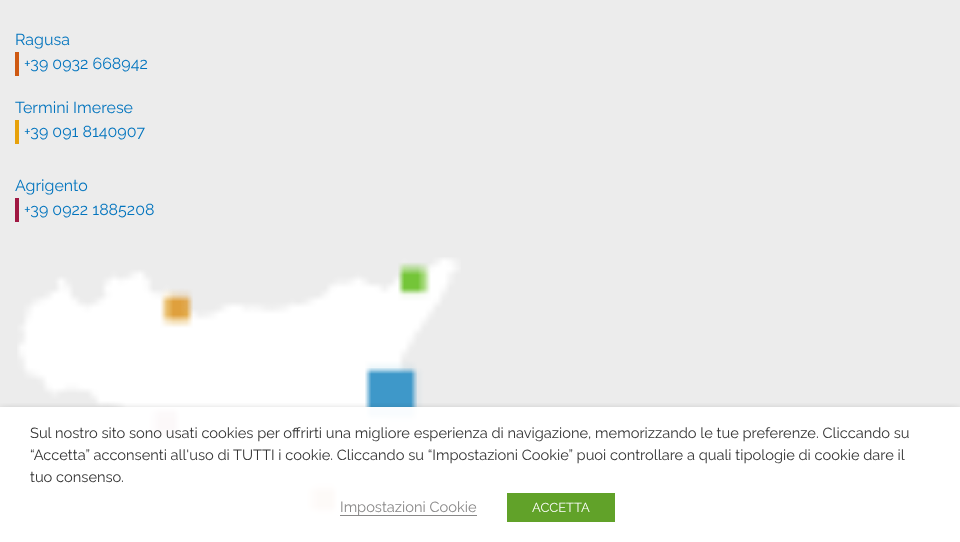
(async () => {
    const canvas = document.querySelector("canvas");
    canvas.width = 960;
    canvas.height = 542;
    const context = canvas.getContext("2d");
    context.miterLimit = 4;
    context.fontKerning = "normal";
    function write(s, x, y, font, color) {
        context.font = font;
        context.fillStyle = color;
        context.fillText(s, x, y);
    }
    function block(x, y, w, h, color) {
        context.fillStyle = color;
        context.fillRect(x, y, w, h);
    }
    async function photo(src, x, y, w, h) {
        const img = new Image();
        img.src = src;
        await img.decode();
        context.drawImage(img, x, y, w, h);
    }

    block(0, 0, 960, 542, "rgb(236, 236, 236)");
    write("Ragusa", 15, 45, "100 16px Raleway", "rgb(2, 116, 190)");
    block(15, 52, 4, 24, "rgb(206, 89, 18)");
    write("+39 0932 668942", 24, 69, "100 16px Raleway", "rgb(2, 116, 190)");
    write("Termini Imerese", 15, 113, "100 16px Raleway", "rgb(2, 116, 190)");
    block(15, 120, 4, 24, "rgb(231, 161, 10)");
    write("+39 091 8140907", 24, 137, "100 16px Raleway", "rgb(2, 116, 190)");
    write("Agrigento", 15, 191, "100 16px Raleway", "rgb(2, 116, 190)");
    block(15, 198, 4, 24, "rgb(160, 24, 66)");
    write("+39 0922 1885208", 24, 215, "100 16px Raleway", "rgb(2, 116, 190)");
    await photo("media/1.png", 17, 257, 444, 285);
    context.save();
    context.beginPath();
    context.rect(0, 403, 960, 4);
    context.clip();
    context.fillStyle = "rgba(0, 0, 0, 0.5)";
    context.filter = "blur(5px)";
    context.beginPath();
    context.rect(0, 412, 960, 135);
    context.fill();
    context.filter = "none";
    context.restore();
    block(0, 407, 960, 135, "rgba(255, 255, 255, 0.97)");
    write("Sul nostro sito sono usati cookies per offrirti una migliore esperienza di navigazione, memorizzando le tue preferenze. Cliccando su", 30, 438, "100 14.67px Raleway", "rgb(51, 51, 51)");
    write("“Accetta” acconsenti all'uso di TUTTI i cookie. Cliccando su “Impostazioni Cookie” puoi controllare a quali tipologie di cookie dare il", 30, 460, "100 14.67px Raleway", "rgb(51, 51, 51)");
    write("tuo consenso.", 30, 482, "100 14.67px Raleway", "rgb(51, 51, 51)");
    block(340, 515, 137, 1, "rgb(137, 136, 136)");
    write("Impostazioni Cookie", 340, 512, "100 14.67px Raleway", "rgb(137, 136, 136)");
    block(507, 493, 108, 29, "rgb(97, 162, 41)");
    write("ACCETTA", 532, 512, "100 13px Raleway", "rgb(255, 255, 255)");
})();
